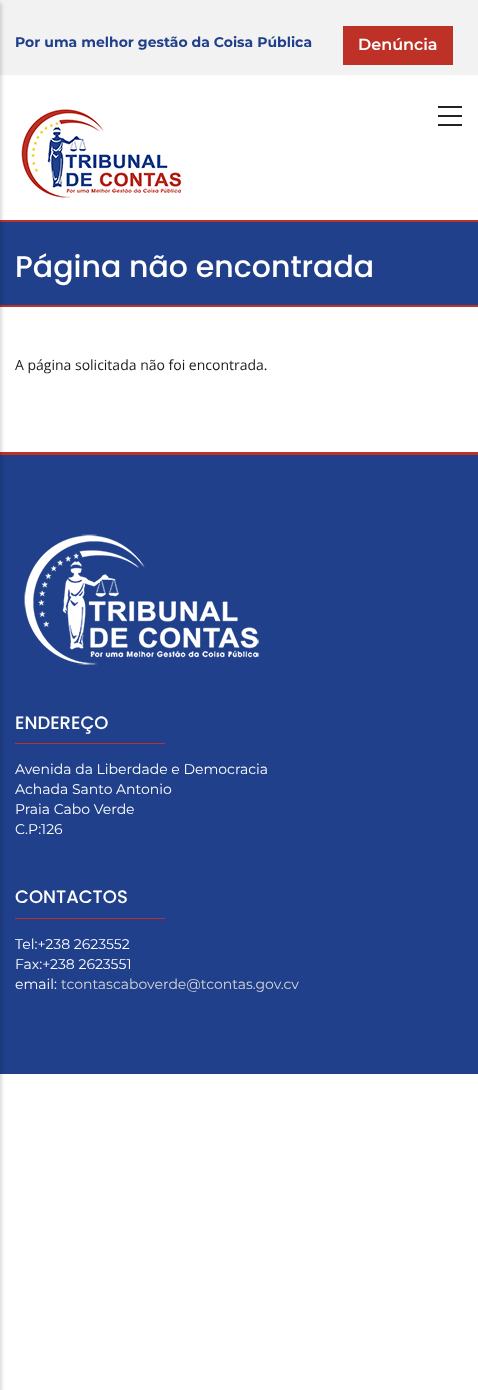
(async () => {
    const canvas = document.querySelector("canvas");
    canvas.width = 478;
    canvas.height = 1390;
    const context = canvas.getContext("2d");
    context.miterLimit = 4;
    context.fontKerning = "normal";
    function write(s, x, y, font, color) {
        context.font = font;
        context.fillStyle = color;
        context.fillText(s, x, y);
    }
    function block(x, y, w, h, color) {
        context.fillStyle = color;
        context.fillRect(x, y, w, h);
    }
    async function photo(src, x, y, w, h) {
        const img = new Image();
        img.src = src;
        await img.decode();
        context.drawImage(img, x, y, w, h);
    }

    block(0, 0, 478, 1390, "rgb(255, 255, 255)");
    block(0, 0, 478, 75, "rgb(242, 242, 242)");
    block(0, 222, 478, 83, "rgb(32, 64, 139)");
    block(0, 220, 478, 2, "rgb(190, 49, 39)");
    block(0, 305, 478, 2, "rgb(190, 49, 39)");
    block(0, 455, 478, 619, "rgb(32, 64, 139)");
    block(0, 452, 478, 3, "rgb(190, 49, 39)");
    context.fillStyle = "rgba(0, 0, 0, 0.2)";
    context.filter = "blur(2px)";
    context.beginPath();
    context.rect(-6, 3, 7, 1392);
    context.fill();
    context.filter = "none";
    block(438, 106, 24, 2, "rgb(34, 34, 34)");
    block(438, 115, 24, 2, "rgb(34, 34, 34)");
    block(438, 124, 24, 2, "rgb(34, 34, 34)");
    await photo("media/1.png", 21, 109, 161, 89);
    write("Por uma melhor gestão da Coisa Pública", 15, 47, "bold 14px Montserrat", "rgb(32, 64, 139)");
    block(343, 26, 110, 39, "rgb(190, 49, 39)");
    write("Denúncia", 358, 50, "600 16px Montserrat", "rgb(255, 255, 255)");
    write("Página não encontrada", 15, 277, "500 30px Poppins", "rgb(255, 255, 255)");
    write("A página solicitada não foi encontrada.", 15, 370, "14px Open Sans", "rgb(25, 27, 28)");
    await photo("media/2.png", 24, 534, 235, 131);
    write("ENDEREÇO", 15, 729, "500 18px Poppins", "rgb(255, 255, 255)");
    block(15, 743, 150, 1, "rgb(190, 49, 39)");
    write("Avenida da Liberdade e Democracia", 15, 774, "14px Montserrat", "rgb(255, 255, 255)");
    write("Achada Santo Antonio", 15, 794, "14px Montserrat", "rgb(255, 255, 255)");
    write("Praia Cabo Verde", 15, 814, "14px Montserrat", "rgb(255, 255, 255)");
    write("C.P:126", 15, 834, "14px Montserrat", "rgb(255, 255, 255)");
    write("CONTACTOS", 15, 903, "500 18px Poppins", "rgb(255, 255, 255)");
    block(15, 918, 150, 1, "rgb(190, 49, 39)");
    write("Tel:+238 2623552", 15, 949, "14px Montserrat", "rgb(255, 255, 255)");
    write("Fax:+238 2623551", 15, 969, "14px Montserrat", "rgb(255, 255, 255)");
    write("email:", 15, 989, "14px Montserrat", "rgb(255, 255, 255)");
    write("tcontascaboverde@tcontas.gov.cv", 61, 989, "14px Montserrat", "rgb(213, 215, 216)");
})();
